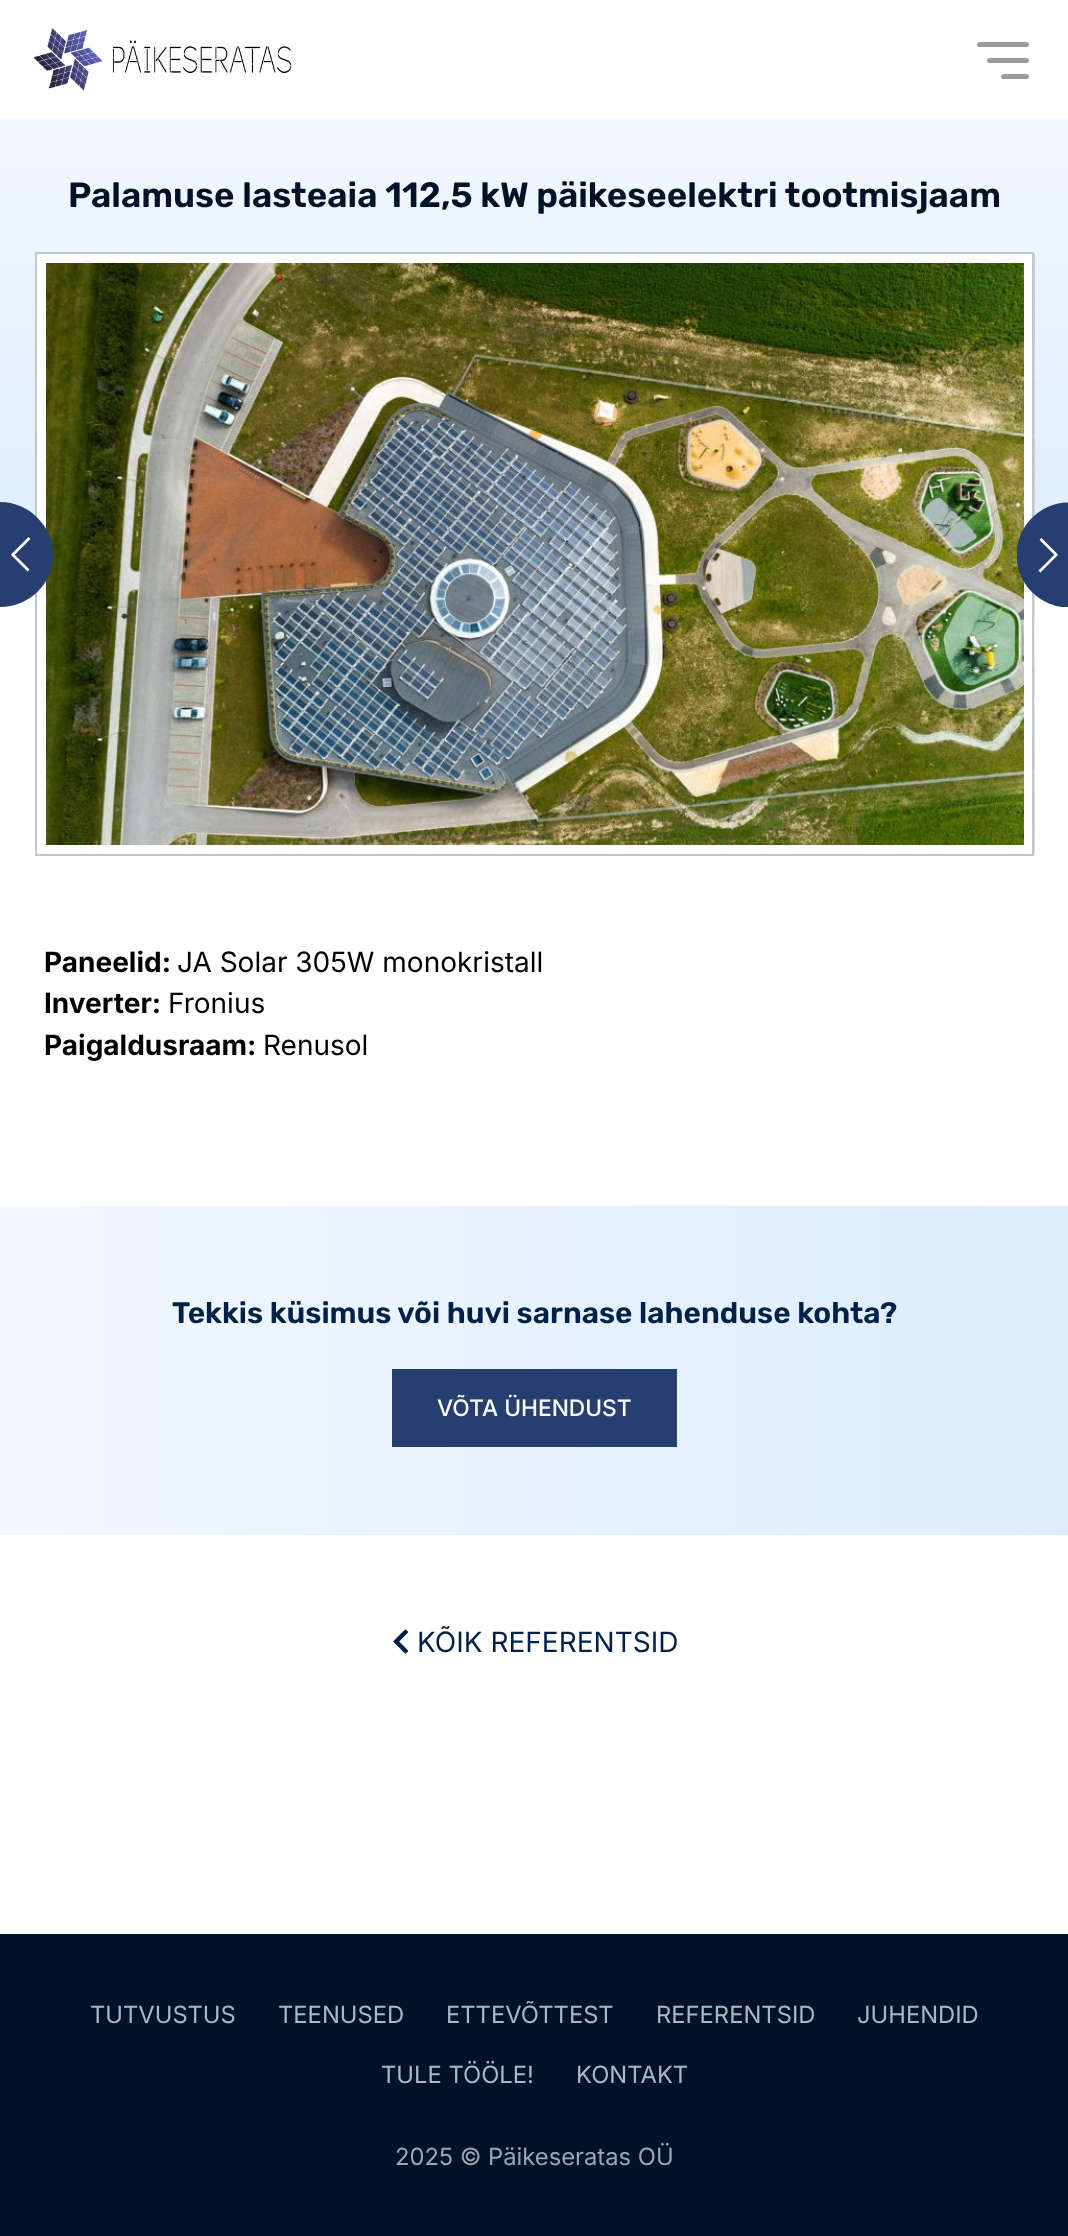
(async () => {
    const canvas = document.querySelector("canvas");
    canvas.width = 1068;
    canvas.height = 2236;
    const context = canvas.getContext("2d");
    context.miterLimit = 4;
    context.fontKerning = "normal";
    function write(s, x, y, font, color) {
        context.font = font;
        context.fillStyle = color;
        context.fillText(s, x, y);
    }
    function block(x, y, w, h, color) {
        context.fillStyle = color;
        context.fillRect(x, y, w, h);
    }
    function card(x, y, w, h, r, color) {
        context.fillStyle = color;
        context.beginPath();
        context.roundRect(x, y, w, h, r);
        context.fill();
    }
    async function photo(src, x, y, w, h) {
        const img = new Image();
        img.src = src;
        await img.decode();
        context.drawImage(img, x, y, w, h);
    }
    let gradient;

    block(0, 0, 1068, 2236, "rgb(255, 255, 255)");
    await photo("media/1.png", 33, 28, 259, 63);
    card(977, 42, 52, 5, 2.5, "rgb(155, 155, 155)");
    card(987, 58, 42, 5, 2.5, "rgb(155, 155, 155)");
    card(1001, 74, 28, 5, 2.5, "rgb(155, 155, 155)");
    gradient = context.createLinearGradient(535, 119, 535, 597);
    gradient.addColorStop(0, "rgb(242, 248, 255)");
    gradient.addColorStop(1, "rgb(221, 236, 253)");
    context.fillStyle = gradient;
    context.beginPath();
    context.moveTo(0, 119);
    context.lineTo(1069, 119);
    context.lineTo(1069, 563);
    context.bezierCurveTo(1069, 582, 830, 597, 535, 597);
    context.bezierCurveTo(239, 597, 0, 582, 0, 563);
    context.closePath();
    context.fill();
    write("Palamuse lasteaia 112,5 kW päikeseelektri tootmisjaam", 68, 207, "600 35px Rubik", "rgb(0, 18, 39)");
    await photo("media/2.png", 46, 253, 989, 601);
    context.strokeStyle = "rgb(255, 255, 255)";
    context.lineWidth = 9;
    context.strokeRect(41.5, 258.5, 987, 591);
    context.strokeStyle = "rgb(191, 200, 208)";
    context.lineWidth = 2;
    context.strokeRect(36, 253, 997, 602);
    context.fillStyle = "rgb(39, 63, 112)";
    context.beginPath();
    context.moveTo(0, 607);
    context.bezierCurveTo(-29, 607, -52, 584, -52, 555);
    context.bezierCurveTo(-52, 526, -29, 502, 0, 502);
    context.bezierCurveTo(29, 502, 53, 526, 53, 555);
    context.bezierCurveTo(53, 584, 29, 607, 0, 607);
    context.closePath();
    context.fill();
    context.beginPath();
    context.moveTo(29.5, 538);
    context.lineTo(12, 555.5);
    context.moveTo(12, 554);
    context.lineTo(28.5, 570.5);
    context.strokeStyle = "rgb(255, 255, 255)";
    context.lineWidth = 2.6;
    context.stroke();
    context.save();
    context.beginPath();
    context.rect(1017, 502, 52, 105);
    context.clip();
    context.beginPath();
    context.arc(1069, 555, 52.5, 0, Math.PI * 2);
    context.fill();
    context.restore();
    context.beginPath();
    context.moveTo(1039.5, 571.5);
    context.lineTo(1057, 554);
    context.moveTo(1057, 555.5);
    context.lineTo(1040.5, 539);
    context.stroke();
    write("Paneelid:", 44, 972, "bold 28px Inter", "rgb(0, 0, 0)");
    write("JA Solar 305W monokristall", 177, 972, "28px Inter", "rgb(0, 0, 0)");
    write("Inverter:", 44, 1013, "bold 28px Inter", "rgb(0, 0, 0)");
    write("Fronius", 168, 1013, "28px Inter", "rgb(0, 0, 0)");
    write("Paigaldusraam:", 44, 1055, "bold 28px Inter", "rgb(0, 0, 0)");
    write("Renusol", 263, 1055, "28px Inter", "rgb(0, 0, 0)");
    gradient = context.createLinearGradient(0, 1370, 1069, 1370);
    gradient.addColorStop(0, "rgb(242, 248, 255)");
    gradient.addColorStop(1, "rgb(221, 236, 253)");
    context.fillStyle = gradient;
    context.fillRect(0, 1206, 1068, 329);
    write("Tekkis küsimus või huvi sarnase lahenduse kohta?", 172, 1323, "600 29.75px Rubik", "rgb(0, 33, 71)");
    block(392, 1369, 285, 78, "rgb(39, 63, 112)");
    write("VÕTA ÜHENDUST", 437, 1416, "500 22.75px Inter", "rgb(251, 251, 251)");
    await photo("media/3.png", 393, 1629, 15, 25);
    write("KÕIK REFERENTSID", 417, 1652, "28px Inter", "rgb(0, 33, 71)");
    block(0, 1934, 1068, 302, "rgb(0, 18, 39)");
    write("TUTVUSTUS", 90, 2023, "23.75px Inter", "rgb(170, 183, 199)");
    write("TEENUSED", 278, 2023, "23.75px Inter", "rgb(170, 183, 199)");
    write("ETTEVÕTTEST", 446, 2023, "23.75px Inter", "rgb(170, 183, 199)");
    write("REFERENTSID", 656, 2023, "23.75px Inter", "rgb(170, 183, 199)");
    write("JUHENDID", 857, 2023, "23.75px Inter", "rgb(170, 183, 199)");
    write("TULE TÖÖLE!", 381, 2083, "23.75px Inter", "rgb(170, 183, 199)");
    write("KONTAKT", 576, 2083, "23.75px Inter", "rgb(170, 183, 199)");
    write("2025 © Päikeseratas OÜ", 395, 2165, "23.75px Inter", "rgb(156, 167, 181)");
})();
